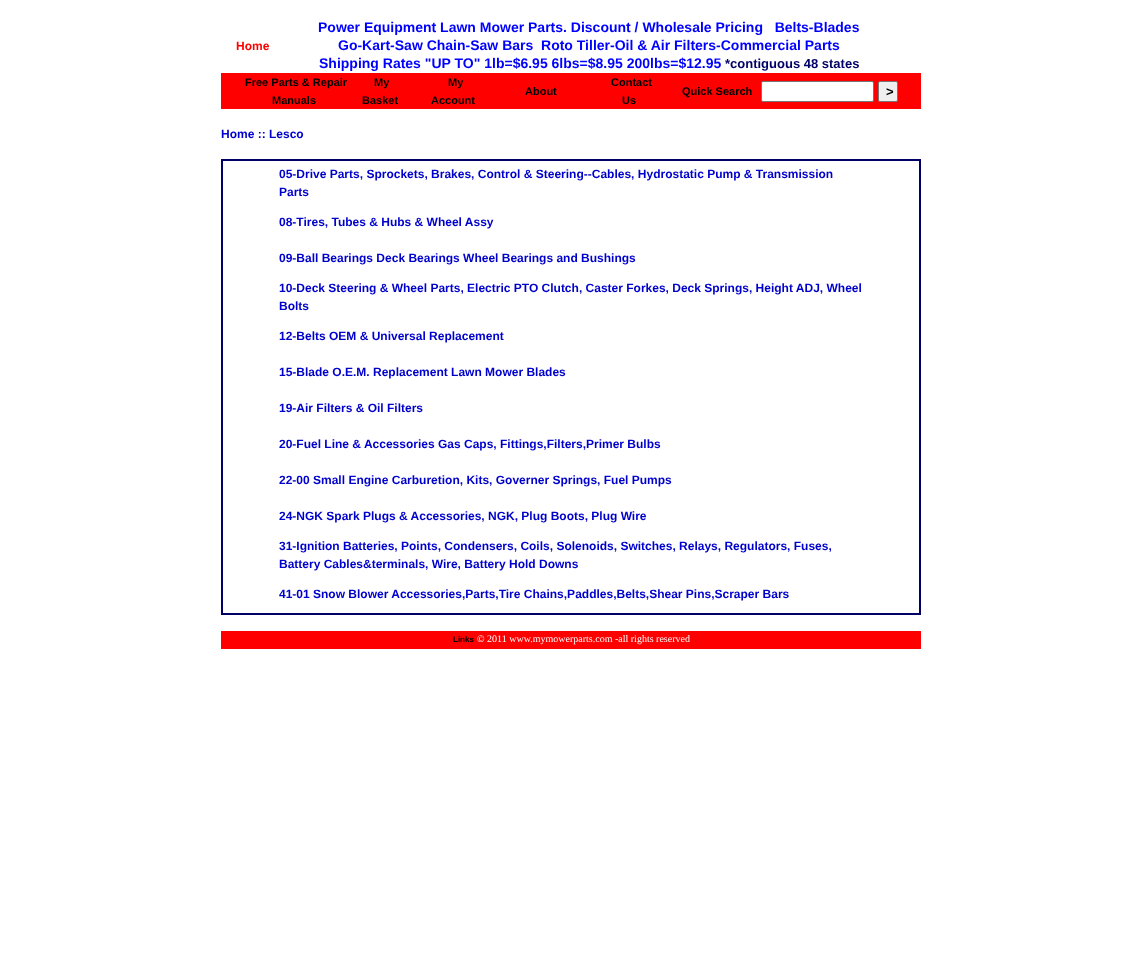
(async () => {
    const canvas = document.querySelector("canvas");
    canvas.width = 1141;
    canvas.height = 975;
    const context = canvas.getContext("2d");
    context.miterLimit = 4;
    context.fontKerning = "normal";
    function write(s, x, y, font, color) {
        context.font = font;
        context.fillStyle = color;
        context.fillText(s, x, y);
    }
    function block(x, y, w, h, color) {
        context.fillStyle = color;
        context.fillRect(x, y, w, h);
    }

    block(0, 0, 1141, 975, "rgb(255, 255, 255)");
    write("Home", 236, 50, "bold 12px Liberation Sans", "rgb(255, 0, 0)");
    write("Power Equipment Lawn Mower Parts. Discount / Wholesale Pricing   Belts-Blades", 318, 32, "bold 14px Liberation Sans", "rgb(0, 0, 255)");
    write("Go-Kart-Saw Chain-Saw Bars  Roto Tiller-Oil & Air Filters-Commercial Parts", 338, 50, "bold 14px Liberation Sans", "rgb(0, 0, 255)");
    write("Shipping Rates \"UP TO\" 1lb=$6.95 6lbs=$8.95 200lbs=$12.95", 319, 68, "bold 14px Liberation Sans", "rgb(0, 0, 255)");
    write("*contiguous 48 states", 725, 68, "bold 13px Liberation Sans", "rgb(0, 0, 102)");
    block(221, 73, 700, 36, "rgb(255, 0, 0)");
    write("Free Parts & Repair", 245, 86, "bold 11px Liberation Sans", "rgb(0, 0, 0)");
    write("Manuals", 272, 104, "bold 11px Liberation Sans", "rgb(0, 0, 0)");
    write("My", 374, 86, "bold 11px Liberation Sans", "rgb(0, 0, 0)");
    write("Basket", 362, 104, "bold 11px Liberation Sans", "rgb(0, 0, 0)");
    write("My", 448, 86, "bold 11px Liberation Sans", "rgb(0, 0, 0)");
    write("Account", 431, 104, "bold 11px Liberation Sans", "rgb(0, 0, 0)");
    write("About", 525, 95, "bold 11px Liberation Sans", "rgb(0, 0, 0)");
    write("Contact", 611, 86, "bold 11px Liberation Sans", "rgb(0, 0, 0)");
    write("Us", 622, 104, "bold 11px Liberation Sans", "rgb(0, 0, 0)");
    write("Quick Search", 682, 95, "bold 11px Liberation Sans", "rgb(0, 0, 0)");
    context.fillStyle = "rgb(255, 255, 255)";
    context.beginPath();
    context.roundRect(761.5, 81.5, 112, 20, 1.5);
    context.fill();
    context.strokeStyle = "rgb(118, 118, 118)";
    context.stroke();
    context.fillStyle = "rgb(239, 239, 239)";
    context.beginPath();
    context.roundRect(878.5, 81.5, 19, 20, 1.5);
    context.fill();
    context.stroke();
    write(">", 886, 96, "bold 13px Liberation Sans", "rgb(0, 0, 0)");
    write("Home :: Lesco", 221, 138, "bold 12px Liberation Sans", "rgb(0, 0, 204)");
    context.strokeStyle = "rgb(0, 0, 102)";
    context.strokeRect(221.5, 159.5, 699, 455);
    context.strokeRect(222.5, 160.5, 697, 453);
    write("05-Drive Parts, Sprockets, Brakes, Control & Steering--Cables, Hydrostatic Pump & Transmission", 279, 178, "bold 12px Liberation Sans", "rgb(0, 0, 204)");
    write("Parts", 279, 196, "bold 12px Liberation Sans", "rgb(0, 0, 204)");
    write("08-Tires, Tubes & Hubs & Wheel Assy", 279, 226, "bold 12px Liberation Sans", "rgb(0, 0, 204)");
    write("09-Ball Bearings Deck Bearings Wheel Bearings and Bushings", 279, 262, "bold 12px Liberation Sans", "rgb(0, 0, 204)");
    write("10-Deck Steering & Wheel Parts, Electric PTO Clutch, Caster Forkes, Deck Springs, Height ADJ, Wheel", 279, 292, "bold 12px Liberation Sans", "rgb(0, 0, 204)");
    write("Bolts", 279, 310, "bold 12px Liberation Sans", "rgb(0, 0, 204)");
    write("12-Belts OEM & Universal Replacement", 279, 340, "bold 12px Liberation Sans", "rgb(0, 0, 204)");
    write("15-Blade O.E.M. Replacement Lawn Mower Blades", 279, 376, "bold 12px Liberation Sans", "rgb(0, 0, 204)");
    write("19-Air Filters & Oil Filters", 279, 412, "bold 12px Liberation Sans", "rgb(0, 0, 204)");
    write("20-Fuel Line & Accessories Gas Caps, Fittings,Filters,Primer Bulbs", 279, 448, "bold 12px Liberation Sans", "rgb(0, 0, 204)");
    write("22-00 Small Engine Carburetion, Kits, Governer Springs, Fuel Pumps", 279, 484, "bold 12px Liberation Sans", "rgb(0, 0, 204)");
    write("24-NGK Spark Plugs & Accessories, NGK, Plug Boots, Plug Wire", 279, 520, "bold 12px Liberation Sans", "rgb(0, 0, 204)");
    write("31-Ignition Batteries, Points, Condensers, Coils, Solenoids, Switches, Relays, Regulators, Fuses,", 279, 550, "bold 12px Liberation Sans", "rgb(0, 0, 204)");
    write("Battery Cables&terminals, Wire, Battery Hold Downs", 279, 568, "bold 12px Liberation Sans", "rgb(0, 0, 204)");
    write("41-01 Snow Blower Accessories,Parts,Tire Chains,Paddles,Belts,Shear Pins,Scraper Bars", 279, 598, "bold 12px Liberation Sans", "rgb(0, 0, 204)");
    block(221, 631, 700, 18, "rgb(255, 0, 0)");
    write("Links", 453, 642, "bold 8px Liberation Sans", "rgb(0, 0, 0)");
    write("© 2011 www.mymowerparts.com -all rights reserved", 477, 642, "10px Liberation Serif", "rgb(255, 255, 255)");
})();
